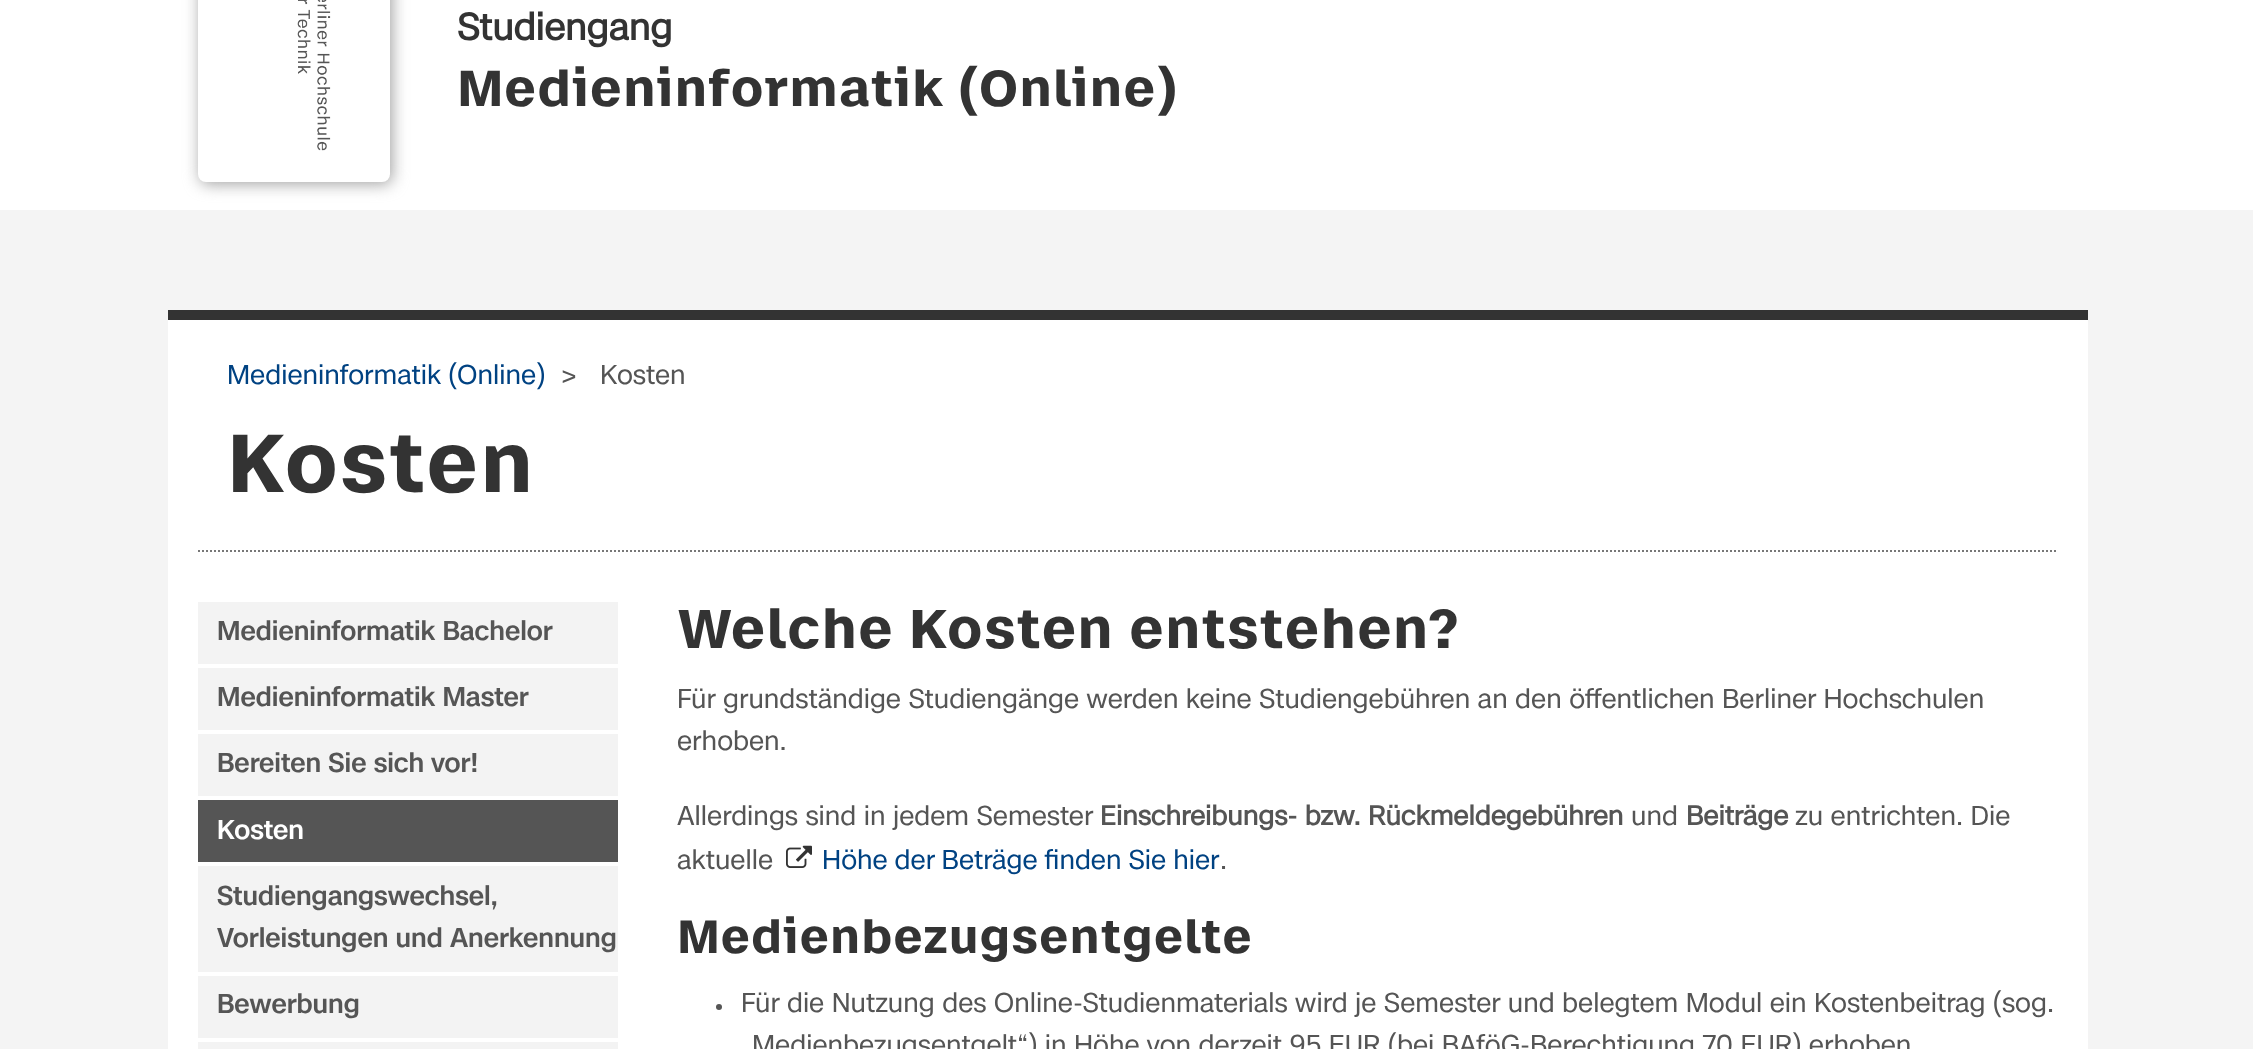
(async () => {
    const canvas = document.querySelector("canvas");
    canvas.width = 2253;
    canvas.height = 1049;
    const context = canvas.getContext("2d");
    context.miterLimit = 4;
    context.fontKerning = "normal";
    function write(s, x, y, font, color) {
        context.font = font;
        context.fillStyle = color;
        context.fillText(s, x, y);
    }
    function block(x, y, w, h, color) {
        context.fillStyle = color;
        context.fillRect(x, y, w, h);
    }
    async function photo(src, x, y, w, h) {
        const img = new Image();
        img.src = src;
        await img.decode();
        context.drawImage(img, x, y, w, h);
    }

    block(0, 0, 2253, 1049, "rgb(244, 244, 244)");
    block(0, 0, 2253, 210, "rgb(255, 255, 255)");
    context.fillStyle = "rgb(160, 160, 160)";
    context.filter = "blur(8px)";
    context.beginPath();
    context.roundRect(200, -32, 192, 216, 8);
    context.fill();
    context.filter = "none";
    context.fillStyle = "rgb(255, 255, 255)";
    context.beginPath();
    context.moveTo(199, -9);
    context.lineTo(389, -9);
    context.lineTo(389, 174);
    context.bezierCurveTo(389, 178, 386, 181, 382, 181);
    context.lineTo(206, 181);
    context.bezierCurveTo(202, 181, 199, 178, 199, 174);
    context.closePath();
    context.fill();
    context.strokeStyle = "rgb(255, 255, 255)";
    context.lineWidth = 2;
    context.stroke();
    await photo("media/1.png", 297, 0, 34, 151);
    write("Studiengang", 457, 40, "bold 36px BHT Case", "rgb(51, 51, 51)");
    write("Medieninformatik (Online)", 457, 106, "bold 48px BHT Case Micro", "rgb(51, 51, 51)");
    block(168, 320, 1920, 729, "rgb(255, 255, 255)");
    block(168, 310, 1920, 10, "rgb(51, 51, 51)");
    write("Medieninformatik (Online)", 227, 384, "26px BHT Case", "rgb(0, 66, 130)");
    write(">", 561, 384, "26px BHT Case", "rgb(85, 85, 85)");
    write("Kosten", 600, 384, "26px BHT Case", "rgb(85, 85, 85)");
    context.beginPath();
    context.moveTo(198, 551);
    context.lineTo(2058, 551);
    context.strokeStyle = "rgb(119, 119, 119)";
    context.setLineDash([2, 2]);
    context.stroke();
    write("Kosten", 227, 492, "bold 78px BHT Case Micro", "rgb(51, 51, 51)");
    block(198, 602, 420, 62, "rgb(243, 243, 243)");
    write("Medieninformatik Bachelor", 217, 640, "500 26px BHT Case", "rgb(85, 85, 85)");
    block(198, 668, 420, 62, "rgb(243, 243, 243)");
    write("Medieninformatik Master", 217, 706, "500 26px BHT Case", "rgb(85, 85, 85)");
    block(198, 734, 420, 62, "rgb(243, 243, 243)");
    write("Bereiten Sie sich vor!", 217, 772, "500 26px BHT Case", "rgb(85, 85, 85)");
    block(198, 800, 420, 62, "rgb(85, 85, 85)");
    write("Kosten", 217, 839, "500 26px BHT Case", "rgb(255, 255, 255)");
    block(198, 866, 420, 106, "rgb(243, 243, 243)");
    write("Studiengangswechsel,", 217, 905, "500 26px BHT Case", "rgb(85, 85, 85)");
    write("Vorleistungen und Anerkennung", 217, 947, "500 26px BHT Case", "rgb(85, 85, 85)");
    block(198, 976, 420, 62, "rgb(243, 243, 243)");
    write("Bewerbung", 217, 1013, "500 26px BHT Case", "rgb(85, 85, 85)");
    block(198, 1042, 420, 7, "rgb(243, 243, 243)");
    write("Welche Kosten entstehen?", 677, 648, "bold 52px BHT Case Micro", "rgb(51, 51, 51)");
    write("Für grundständige Studiengänge werden keine Studiengebühren an den öffentlichen Berliner Hochschulen", 677, 708, "26px BHT Case", "rgb(85, 85, 85)");
    write("erhoben.", 677, 750, "26px BHT Case", "rgb(85, 85, 85)");
    write("Allerdings sind in jedem Semester", 677, 825, "26px BHT Case", "rgb(85, 85, 85)");
    write("Einschreibungs- bzw. Rückmeldegebühren", 1100, 825, "bold 26px BHT Case", "rgb(85, 85, 85)");
    write("und", 1631, 825, "26px BHT Case", "rgb(85, 85, 85)");
    write("Beiträge", 1686, 825, "bold 26px BHT Case", "rgb(85, 85, 85)");
    write("zu entrichten. Die", 1795, 825, "26px BHT Case", "rgb(85, 85, 85)");
    write("aktuelle", 677, 869, "26px BHT Case", "rgb(85, 85, 85)");
    await photo("media/2.png", 786, 845, 26, 23);
    context.wordSpacing = "-0.5px";
    write("Höhe der Beträge finden Sie hier", 822, 869, "26px BHT Case", "rgb(0, 66, 130)");
    context.wordSpacing = "0px";
    write(".", 1220, 869, "26px BHT Case", "rgb(85, 85, 85)");
    write("Medienbezugsentgelte", 677, 953, "bold 44.25px BHT Case Micro", "rgb(51, 51, 51)");
    context.fillStyle = "rgb(85, 85, 85)";
    context.beginPath();
    context.arc(719, 1007, 3, 0, Math.PI * 2);
    context.fill();
    write("Für die Nutzung des Online-Studienmaterials wird je Semester und belegtem Modul ein Kostenbeitrag (sog.", 741, 1012, "26px BHT Case", "rgb(85, 85, 85)");
    write("Medienbezugsentgelt“) in Höhe von derzeit 95 EUR (bei BAföG-Berechtigung 70 EUR) erhoben", 752, 1054, "26px BHT Case", "rgb(85, 85, 85)");
})();
